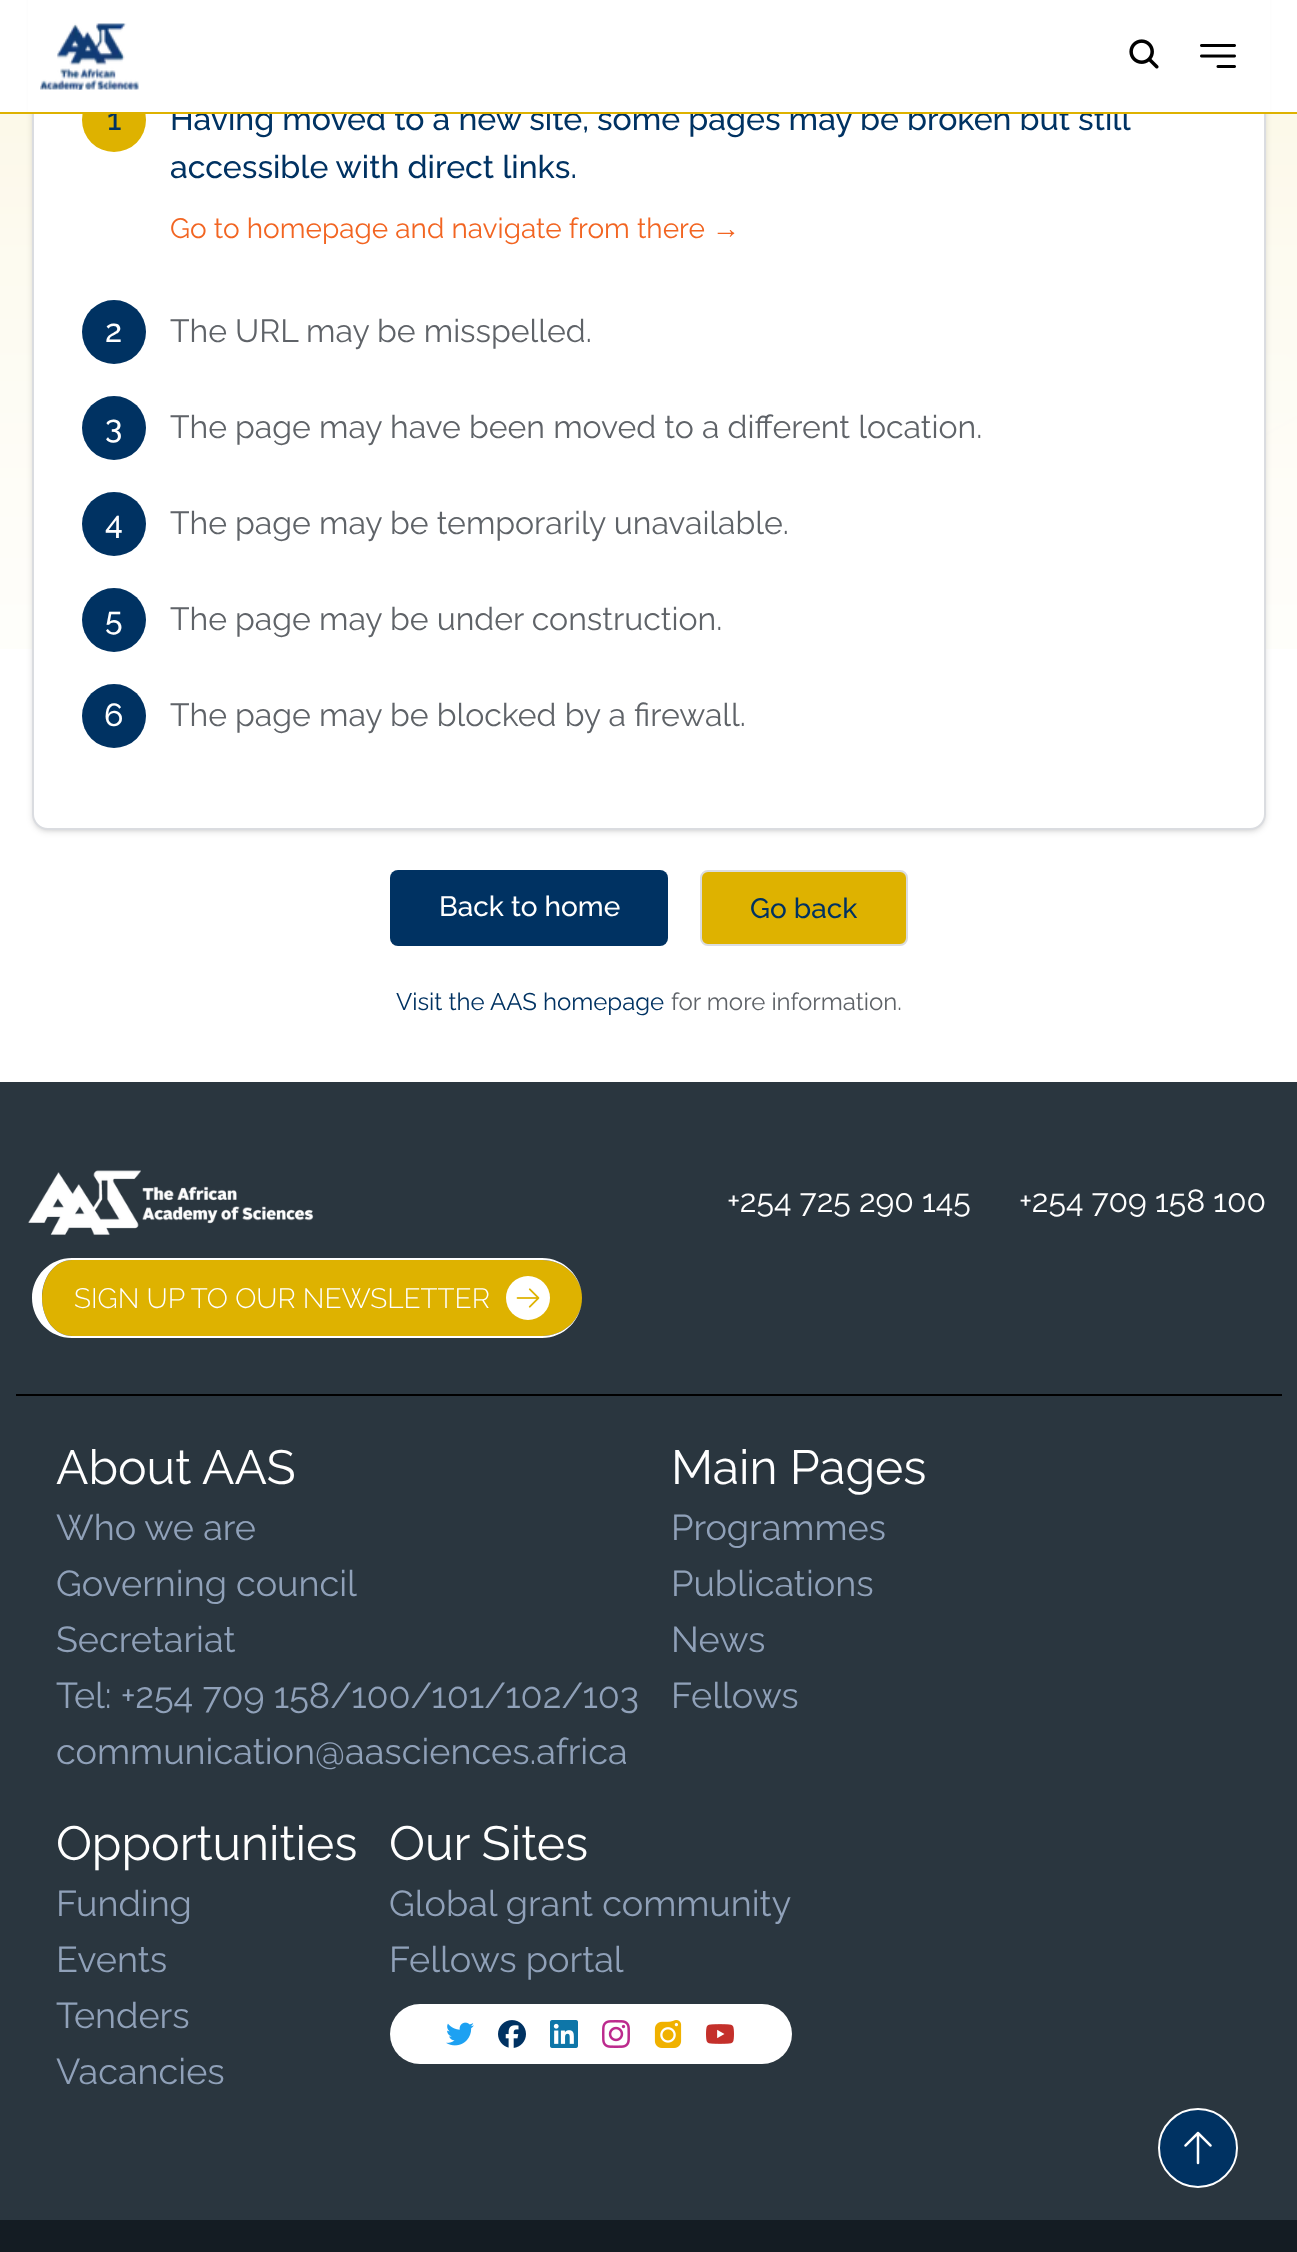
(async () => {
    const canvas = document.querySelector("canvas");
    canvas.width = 1297;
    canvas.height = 2252;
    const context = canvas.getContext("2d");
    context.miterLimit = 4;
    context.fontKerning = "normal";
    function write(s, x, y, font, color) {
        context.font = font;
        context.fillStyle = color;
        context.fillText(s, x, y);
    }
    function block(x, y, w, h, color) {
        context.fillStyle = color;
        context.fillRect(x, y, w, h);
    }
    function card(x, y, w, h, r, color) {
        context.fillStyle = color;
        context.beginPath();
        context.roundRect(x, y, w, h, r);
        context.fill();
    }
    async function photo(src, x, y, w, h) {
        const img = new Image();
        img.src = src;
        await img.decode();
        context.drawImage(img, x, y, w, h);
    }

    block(0, 0, 1297, 2252, "rgb(255, 255, 255)");
    await photo("media/13.png", 0, 114, 1297, 535);
    context.fillStyle = "rgba(0, 0, 0, 0.1)";
    context.filter = "blur(2px)";
    context.beginPath();
    context.roundRect(34, -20, 1230, 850, 14);
    context.fill();
    context.filter = "none";
    context.filter = "blur(3px)";
    context.beginPath();
    context.roundRect(32, -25, 1234, 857, 16);
    context.fill();
    context.filter = "none";
    context.fillStyle = "rgb(255, 255, 255)";
    context.beginPath();
    context.roundRect(33, -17, 1232, 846, 15);
    context.fill();
    context.strokeStyle = "rgb(218, 220, 224)";
    context.lineWidth = 2;
    context.stroke();
    context.fillStyle = "rgb(222, 178, 0)";
    context.beginPath();
    context.arc(114, 120, 32, 0, Math.PI * 2);
    context.fill();
    write("1", 107, 130, "500 32px Raleway", "rgb(0, 50, 98)");
    write("Having moved to a new site, some pages may be broken but still", 170, 130, "500 32px Raleway", "rgb(0, 50, 98)");
    block(28, 0, 1242, 112, "rgb(255, 255, 255)");
    block(0, 112, 1297, 2, "rgb(222, 178, 0)");
    await photo("media/1.png", 40, 23, 99, 67);
    await photo("media/2.png", 1129, 39, 30, 30);
    await photo("media/3.png", 1200, 44, 36, 24);
    write("accessible with direct links.", 170, 178, "500 32px Raleway", "rgb(0, 50, 98)");
    write("Go to homepage and navigate from there", 170, 238, "28px Raleway", "rgb(242, 101, 34)");
    write("→", 712, 238, "28px Liberation Serif", "rgb(242, 101, 34)");
    context.fillStyle = "rgb(0, 50, 98)";
    context.beginPath();
    context.arc(114, 332, 32, 0, Math.PI * 2);
    context.fill();
    write("2", 105, 342, "500 32px Raleway", "rgb(255, 255, 255)");
    write("The URL may be misspelled.", 170, 342, "32px Raleway", "rgb(95, 99, 104)");
    context.fillStyle = "rgb(0, 50, 98)";
    context.beginPath();
    context.arc(114, 428, 32, 0, Math.PI * 2);
    context.fill();
    write("3", 105, 438, "500 32px Raleway", "rgb(255, 255, 255)");
    write("The page may have been moved to a different location.", 170, 438, "32px Raleway", "rgb(95, 99, 104)");
    context.fillStyle = "rgb(0, 50, 98)";
    context.beginPath();
    context.arc(114, 524, 32, 0, Math.PI * 2);
    context.fill();
    write("4", 105, 534, "500 32px Raleway", "rgb(255, 255, 255)");
    write("The page may be temporarily unavailable.", 170, 534, "32px Raleway", "rgb(95, 99, 104)");
    context.fillStyle = "rgb(0, 50, 98)";
    context.beginPath();
    context.arc(114, 620, 32, 0, Math.PI * 2);
    context.fill();
    write("5", 105, 630, "500 32px Raleway", "rgb(255, 255, 255)");
    write("The page may be under construction.", 170, 630, "32px Raleway", "rgb(95, 99, 104)");
    context.fillStyle = "rgb(0, 50, 98)";
    context.beginPath();
    context.arc(114, 716, 32, 0, Math.PI * 2);
    context.fill();
    write("6", 104, 726, "500 32px Raleway", "rgb(255, 255, 255)");
    write("The page may be blocked by a firewall.", 170, 726, "32px Raleway", "rgb(95, 99, 104)");
    card(390, 870, 278, 76, 8, "rgb(0, 50, 98)");
    write("Back to home", 439, 916, "500 28px Raleway", "rgb(255, 255, 255)");
    context.fillStyle = "rgb(222, 178, 0)";
    context.beginPath();
    context.roundRect(701, 871, 206, 74, 7);
    context.fill();
    context.stroke();
    write("Go back", 750, 918, "500 28px Raleway", "rgb(0, 50, 98)");
    write("Visit the AAS homepage", 396, 1010, "24px Raleway", "rgb(0, 50, 98)");
    write("for more information.", 671, 1010, "24px Raleway", "rgb(95, 99, 104)");
    block(0, 1082, 1297, 1138, "rgb(42, 54, 63)");
    context.fillStyle = "rgb(0, 50, 98)";
    context.beginPath();
    context.arc(1198, 2148, 39, 0, Math.PI * 2);
    context.fill();
    context.strokeStyle = "rgb(255, 255, 255)";
    context.stroke();
    await photo("media/4.png", 1184, 2131, 28, 34);
    await photo("media/5.png", 28, 1170, 286, 65);
    write("+254 725 290 145", 727, 1212, "32px Raleway", "rgb(255, 255, 255)");
    write("+254 709 158 100", 1019, 1212, "32px Raleway", "rgb(255, 255, 255)");
    context.fillStyle = "rgb(222, 178, 0)";
    context.beginPath();
    context.moveTo(72, 1260);
    context.lineTo(542, 1260);
    context.bezierCurveTo(564, 1260, 582, 1277, 582, 1298);
    context.bezierCurveTo(582, 1319, 564, 1336, 542, 1336);
    context.lineTo(72, 1336);
    context.bezierCurveTo(55, 1336, 42, 1319, 42, 1298);
    context.bezierCurveTo(42, 1277, 55, 1260, 72, 1260);
    context.closePath();
    context.fill();
    context.fillStyle = "rgb(255, 255, 255)";
    context.beginPath();
    context.moveTo(72, 1258);
    context.lineTo(542, 1258);
    context.bezierCurveTo(564, 1258, 582, 1276, 582, 1298);
    context.bezierCurveTo(582, 1320, 564, 1338, 542, 1338);
    context.lineTo(72, 1338);
    context.bezierCurveTo(50, 1338, 32, 1320, 32, 1298);
    context.bezierCurveTo(32, 1276, 50, 1258, 72, 1258);
    context.closePath();
    context.moveTo(72, 1260);
    context.lineTo(542, 1260);
    context.bezierCurveTo(564, 1260, 582, 1277, 582, 1298);
    context.bezierCurveTo(582, 1319, 564, 1336, 542, 1336);
    context.lineTo(72, 1336);
    context.bezierCurveTo(55, 1336, 42, 1319, 42, 1298);
    context.bezierCurveTo(42, 1277, 55, 1260, 72, 1260);
    context.closePath();
    context.fill("evenodd");
    write("SIGN UP TO OUR NEWSLETTER", 74, 1308, "300 28px Raleway", "rgb(255, 255, 255)");
    context.beginPath();
    context.arc(528, 1298, 22, 0, Math.PI * 2);
    context.fill();
    await photo("media/6.png", 516, 1288, 24, 20);
    block(16, 1394, 1266, 2, "rgb(0, 0, 0)");
    write("About AAS", 56, 1484, "48px Raleway", "rgb(255, 255, 255)");
    write("Who we are", 56, 1540, "36px Raleway", "rgb(144, 161, 185)");
    write("Governing council", 56, 1596, "36px Raleway", "rgb(144, 161, 185)");
    write("Secretariat", 56, 1652, "36px Raleway", "rgb(144, 161, 185)");
    write("Tel: +254 709 158/100/101/102/103", 56, 1708, "36px Raleway", "rgb(144, 161, 185)");
    write("communication@aasciences.africa", 56, 1764, "36px Raleway", "rgb(144, 161, 185)");
    write("Main Pages", 671, 1484, "48px Raleway", "rgb(255, 255, 255)");
    write("Programmes", 671, 1540, "36px Raleway", "rgb(144, 161, 185)");
    write("Publications", 671, 1596, "36px Raleway", "rgb(144, 161, 185)");
    write("News", 671, 1652, "36px Raleway", "rgb(144, 161, 185)");
    write("Fellows", 671, 1708, "36px Raleway", "rgb(144, 161, 185)");
    write("Opportunities", 56, 1860, "48px Raleway", "rgb(255, 255, 255)");
    write("Funding", 56, 1916, "36px Raleway", "rgb(144, 161, 185)");
    write("Events", 56, 1972, "36px Raleway", "rgb(144, 161, 185)");
    write("Tenders", 56, 2028, "36px Raleway", "rgb(144, 161, 185)");
    write("Vacancies", 56, 2084, "36px Raleway", "rgb(144, 161, 185)");
    write("Our Sites", 389, 1860, "48px Raleway", "rgb(255, 255, 255)");
    write("Global grant community", 389, 1916, "36px Raleway", "rgb(144, 161, 185)");
    write("Fellows portal", 389, 1972, "36px Raleway", "rgb(144, 161, 185)");
    card(390, 2004, 402, 60, 30, "rgb(255, 255, 255)");
    await photo("media/7.png", 446, 2022, 28, 24);
    await photo("media/8.png", 498, 2020, 28, 28);
    await photo("media/9.png", 550, 2020, 28, 28);
    await photo("media/10.png", 602, 2020, 28, 28);
    await photo("media/11.png", 654, 2020, 28, 28);
    await photo("media/12.png", 706, 2024, 28, 20);
    block(0, 2220, 1297, 32, "rgb(20, 28, 35)");
})();
